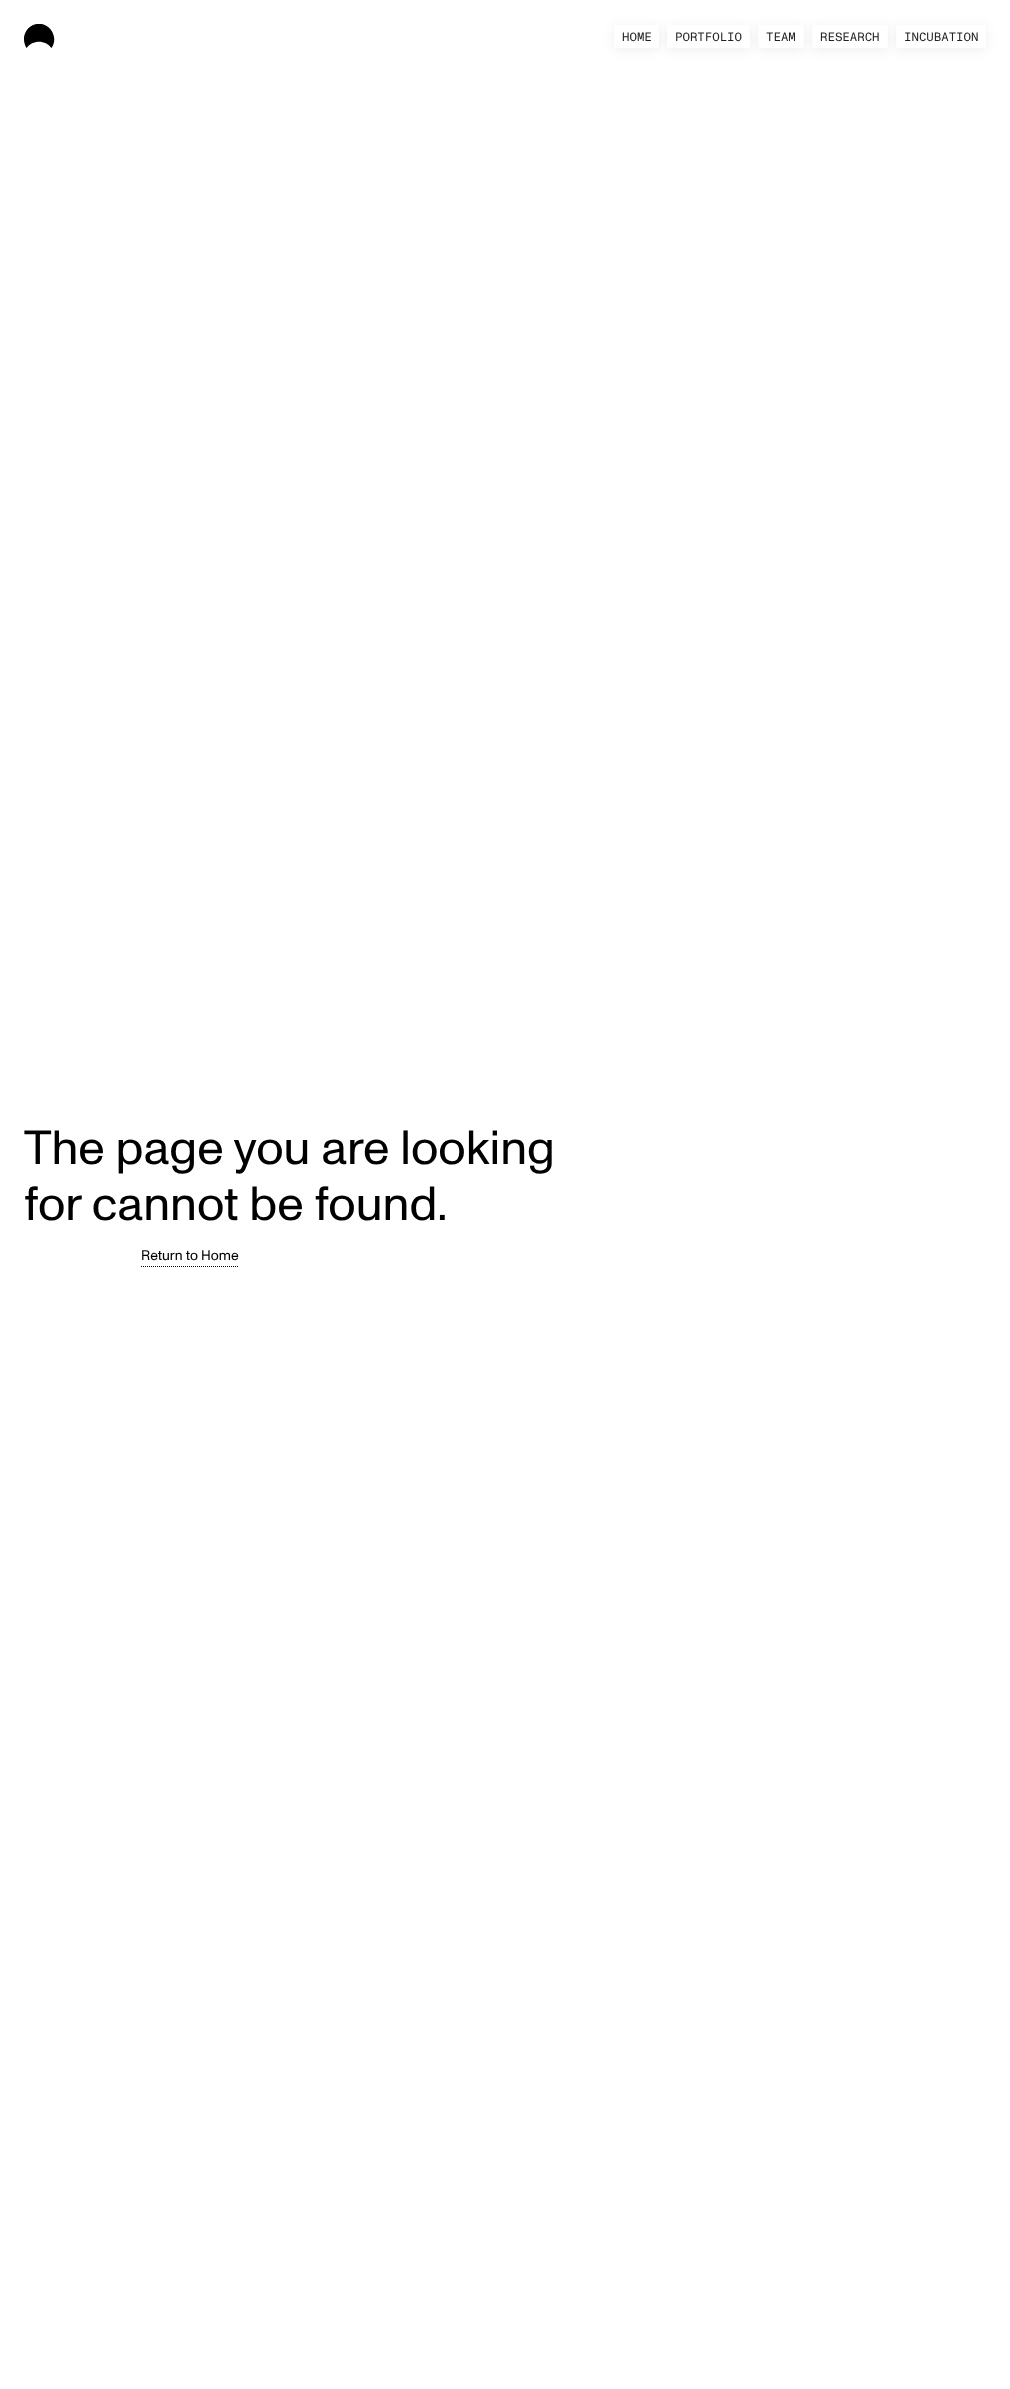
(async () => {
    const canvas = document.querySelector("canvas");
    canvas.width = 1010;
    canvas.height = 2389;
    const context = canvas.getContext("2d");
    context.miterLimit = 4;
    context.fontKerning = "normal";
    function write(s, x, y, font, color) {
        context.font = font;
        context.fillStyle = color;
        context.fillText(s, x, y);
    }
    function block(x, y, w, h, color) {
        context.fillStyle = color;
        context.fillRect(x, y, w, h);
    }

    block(0, 0, 1010, 2389, "rgb(255, 255, 255)");
    context.save();
    context.beginPath();
    context.rect(24, 24, 31, 24);
    context.clip();
    context.fillStyle = "rgb(0, 0, 0)";
    context.beginPath();
    context.moveTo(51.5, 48);
    context.bezierCurveTo(60, 36, 47.5, 19, 33, 25);
    context.bezierCurveTo(29.5, 26.5, 26.5, 29.5, 25, 33.5);
    context.bezierCurveTo(23, 38, 24, 43.5, 26.5, 48);
    context.bezierCurveTo(32.5, 39.5, 45.5, 39.5, 51.5, 48);
    context.closePath();
    context.fill("evenodd");
    context.restore();
    context.save();
    context.beginPath();
    context.moveTo(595, 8);
    context.lineTo(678, 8);
    context.lineTo(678, 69);
    context.lineTo(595, 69);
    context.closePath();
    context.moveTo(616, 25);
    context.lineTo(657, 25);
    context.bezierCurveTo(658, 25, 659, 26, 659, 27);
    context.lineTo(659, 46);
    context.bezierCurveTo(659, 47, 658, 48, 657, 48);
    context.lineTo(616, 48);
    context.bezierCurveTo(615, 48, 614, 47, 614, 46);
    context.lineTo(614, 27);
    context.bezierCurveTo(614, 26, 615, 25, 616, 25);
    context.closePath();
    context.clip("evenodd");
    context.fillStyle = "rgba(37, 34, 30, 0.08)";
    context.filter = "blur(6px)";
    context.beginPath();
    context.roundRect(614, 27, 45, 23, 2);
    context.fill();
    context.filter = "none";
    context.restore();
    write("HOME", 622, 41, "12px 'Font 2'", "rgb(34, 34, 34)");
    context.save();
    context.beginPath();
    context.moveTo(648, 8);
    context.lineTo(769, 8);
    context.lineTo(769, 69);
    context.lineTo(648, 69);
    context.closePath();
    context.moveTo(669, 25);
    context.lineTo(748, 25);
    context.bezierCurveTo(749, 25, 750, 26, 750, 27);
    context.lineTo(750, 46);
    context.bezierCurveTo(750, 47, 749, 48, 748, 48);
    context.lineTo(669, 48);
    context.bezierCurveTo(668, 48, 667, 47, 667, 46);
    context.lineTo(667, 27);
    context.bezierCurveTo(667, 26, 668, 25, 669, 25);
    context.closePath();
    context.clip("evenodd");
    context.fillStyle = "rgba(37, 34, 30, 0.08)";
    context.filter = "blur(6px)";
    context.beginPath();
    context.roundRect(667, 27, 83, 23, 2);
    context.fill();
    context.filter = "none";
    context.restore();
    write("PORTFOLIO", 675, 41, "12px 'Font 2'", "rgb(34, 34, 34)");
    context.save();
    context.beginPath();
    context.moveTo(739, 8);
    context.lineTo(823, 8);
    context.lineTo(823, 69);
    context.lineTo(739, 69);
    context.closePath();
    context.moveTo(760, 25);
    context.lineTo(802, 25);
    context.bezierCurveTo(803, 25, 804, 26, 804, 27);
    context.lineTo(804, 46);
    context.bezierCurveTo(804, 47, 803, 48, 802, 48);
    context.lineTo(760, 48);
    context.bezierCurveTo(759, 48, 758, 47, 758, 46);
    context.lineTo(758, 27);
    context.bezierCurveTo(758, 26, 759, 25, 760, 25);
    context.closePath();
    context.clip("evenodd");
    context.fillStyle = "rgba(37, 34, 30, 0.08)";
    context.filter = "blur(6px)";
    context.beginPath();
    context.roundRect(758, 27, 46, 23, 2);
    context.fill();
    context.filter = "none";
    context.restore();
    write("TEAM", 766, 41, "12px 'Font 2'", "rgb(34, 34, 34)");
    context.save();
    context.beginPath();
    context.moveTo(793, 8);
    context.lineTo(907, 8);
    context.lineTo(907, 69);
    context.lineTo(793, 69);
    context.closePath();
    context.moveTo(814, 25);
    context.lineTo(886, 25);
    context.bezierCurveTo(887, 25, 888, 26, 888, 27);
    context.lineTo(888, 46);
    context.bezierCurveTo(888, 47, 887, 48, 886, 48);
    context.lineTo(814, 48);
    context.bezierCurveTo(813, 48, 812, 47, 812, 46);
    context.lineTo(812, 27);
    context.bezierCurveTo(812, 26, 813, 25, 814, 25);
    context.closePath();
    context.clip("evenodd");
    context.fillStyle = "rgba(37, 34, 30, 0.08)";
    context.filter = "blur(6px)";
    context.beginPath();
    context.roundRect(812, 27, 76, 23, 2);
    context.fill();
    context.filter = "none";
    context.restore();
    write("RESEARCH", 820, 41, "12px 'Font 2'", "rgb(34, 34, 34)");
    context.save();
    context.beginPath();
    context.moveTo(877, 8);
    context.lineTo(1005, 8);
    context.lineTo(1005, 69);
    context.lineTo(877, 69);
    context.closePath();
    context.moveTo(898, 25);
    context.lineTo(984, 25);
    context.bezierCurveTo(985, 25, 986, 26, 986, 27);
    context.lineTo(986, 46);
    context.bezierCurveTo(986, 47, 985, 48, 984, 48);
    context.lineTo(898, 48);
    context.bezierCurveTo(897, 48, 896, 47, 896, 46);
    context.lineTo(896, 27);
    context.bezierCurveTo(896, 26, 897, 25, 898, 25);
    context.closePath();
    context.clip("evenodd");
    context.fillStyle = "rgba(37, 34, 30, 0.08)";
    context.filter = "blur(6px)";
    context.beginPath();
    context.roundRect(896, 27, 90, 23, 2);
    context.fill();
    context.filter = "none";
    context.restore();
    write("INCUBATION", 904, 41, "12px 'Font 2'", "rgb(34, 34, 34)");
    write("The page you are looking", 24, 1164, "48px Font", "rgb(0, 0, 0)");
    write("for cannot be found.", 24, 1220, "48px Font", "rgb(0, 0, 0)");
    context.beginPath();
    context.moveTo(141, 1266.5);
    context.lineTo(239, 1266.5);
    context.strokeStyle = "rgb(0, 0, 0)";
    context.setLineDash([1, 1]);
    context.stroke();
    write("Return to Home", 141, 1260, "14px Font", "rgb(0, 0, 0)");
})();
